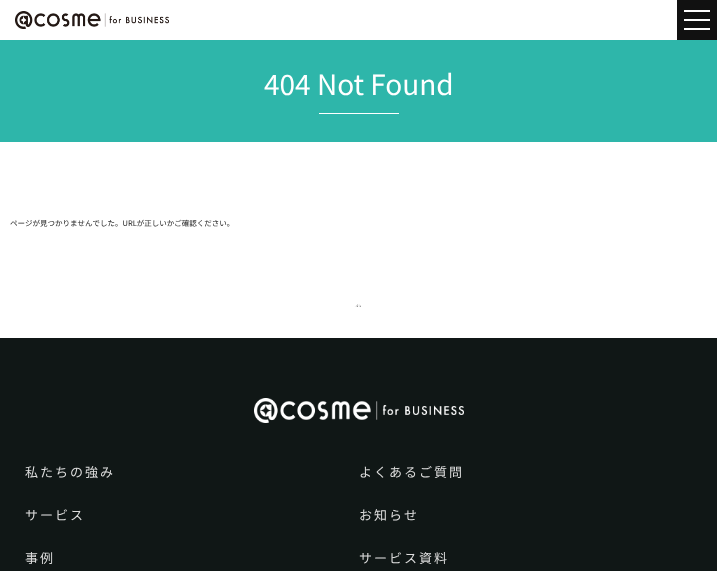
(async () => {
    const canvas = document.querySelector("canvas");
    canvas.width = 717;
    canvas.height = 571;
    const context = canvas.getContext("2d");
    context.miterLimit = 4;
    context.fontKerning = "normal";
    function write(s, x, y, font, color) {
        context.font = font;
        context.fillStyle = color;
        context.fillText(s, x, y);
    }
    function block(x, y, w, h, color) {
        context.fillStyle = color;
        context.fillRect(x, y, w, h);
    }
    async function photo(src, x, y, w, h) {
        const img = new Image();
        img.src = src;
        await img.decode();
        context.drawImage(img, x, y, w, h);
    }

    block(0, 0, 717, 571, "rgb(255, 255, 255)");
    await photo("media/1.png", 15, 11, 154, 18);
    block(677, 0, 40, 40, "rgb(17, 17, 17)");
    block(684, 10, 26, 2, "rgb(255, 255, 255)");
    block(684, 19, 26, 2, "rgb(255, 255, 255)");
    block(684, 28, 26, 2, "rgb(255, 255, 255)");
    block(0, 40, 717, 102, "rgb(46, 182, 170)");
    write("404 Not Found", 264, 95, "28px Noto Sans JP", "rgb(255, 255, 255)");
    block(319, 113, 80, 1, "rgb(255, 255, 255)");
    write("ページが見つかりませんでした。URLが正しいかご確認ください。", 10, 226, "7.5px Noto Sans JP", "rgb(34, 34, 34)");
    context.fillStyle = "rgb(0, 0, 0)";
    context.beginPath();
    context.moveTo(358.5, 303.5);
    context.lineTo(368.5, 313);
    context.lineTo(366.5, 315.5);
    context.lineTo(356.5, 305.5);
    context.closePath();
    context.fill();
    context.beginPath();
    context.moveTo(358.5, 303.5);
    context.lineTo(360.5, 305.5);
    context.lineTo(350.5, 315.5);
    context.lineTo(348.5, 313);
    context.closePath();
    context.fill();
    await photo("media/2.png", 348, 303, 21, 12);
    await photo("media/3.png", 349, 304, 19, 12);
    block(356, 303, 5, 3, "rgba(255, 255, 255, 0.76)");
    block(0, 338, 717, 233, "rgb(16, 23, 22)");
    await photo("media/4.png", 254, 398, 210, 25);
    context.letterSpacing = "2px";
    write("私たちの強み", 25, 477, "13px Noto Sans JP", "rgb(221, 221, 221)");
    write("サービス", 25, 520, "13px Noto Sans JP", "rgb(221, 221, 221)");
    write("事例", 25, 563, "13px Noto Sans JP", "rgb(221, 221, 221)");
    write("よくあるご質問", 359, 477, "13px Noto Sans JP", "rgb(221, 221, 221)");
    write("お知らせ", 359, 520, "13px Noto Sans JP", "rgb(221, 221, 221)");
    write("サービス資料", 359, 563, "13px Noto Sans JP", "rgb(221, 221, 221)");
})();
